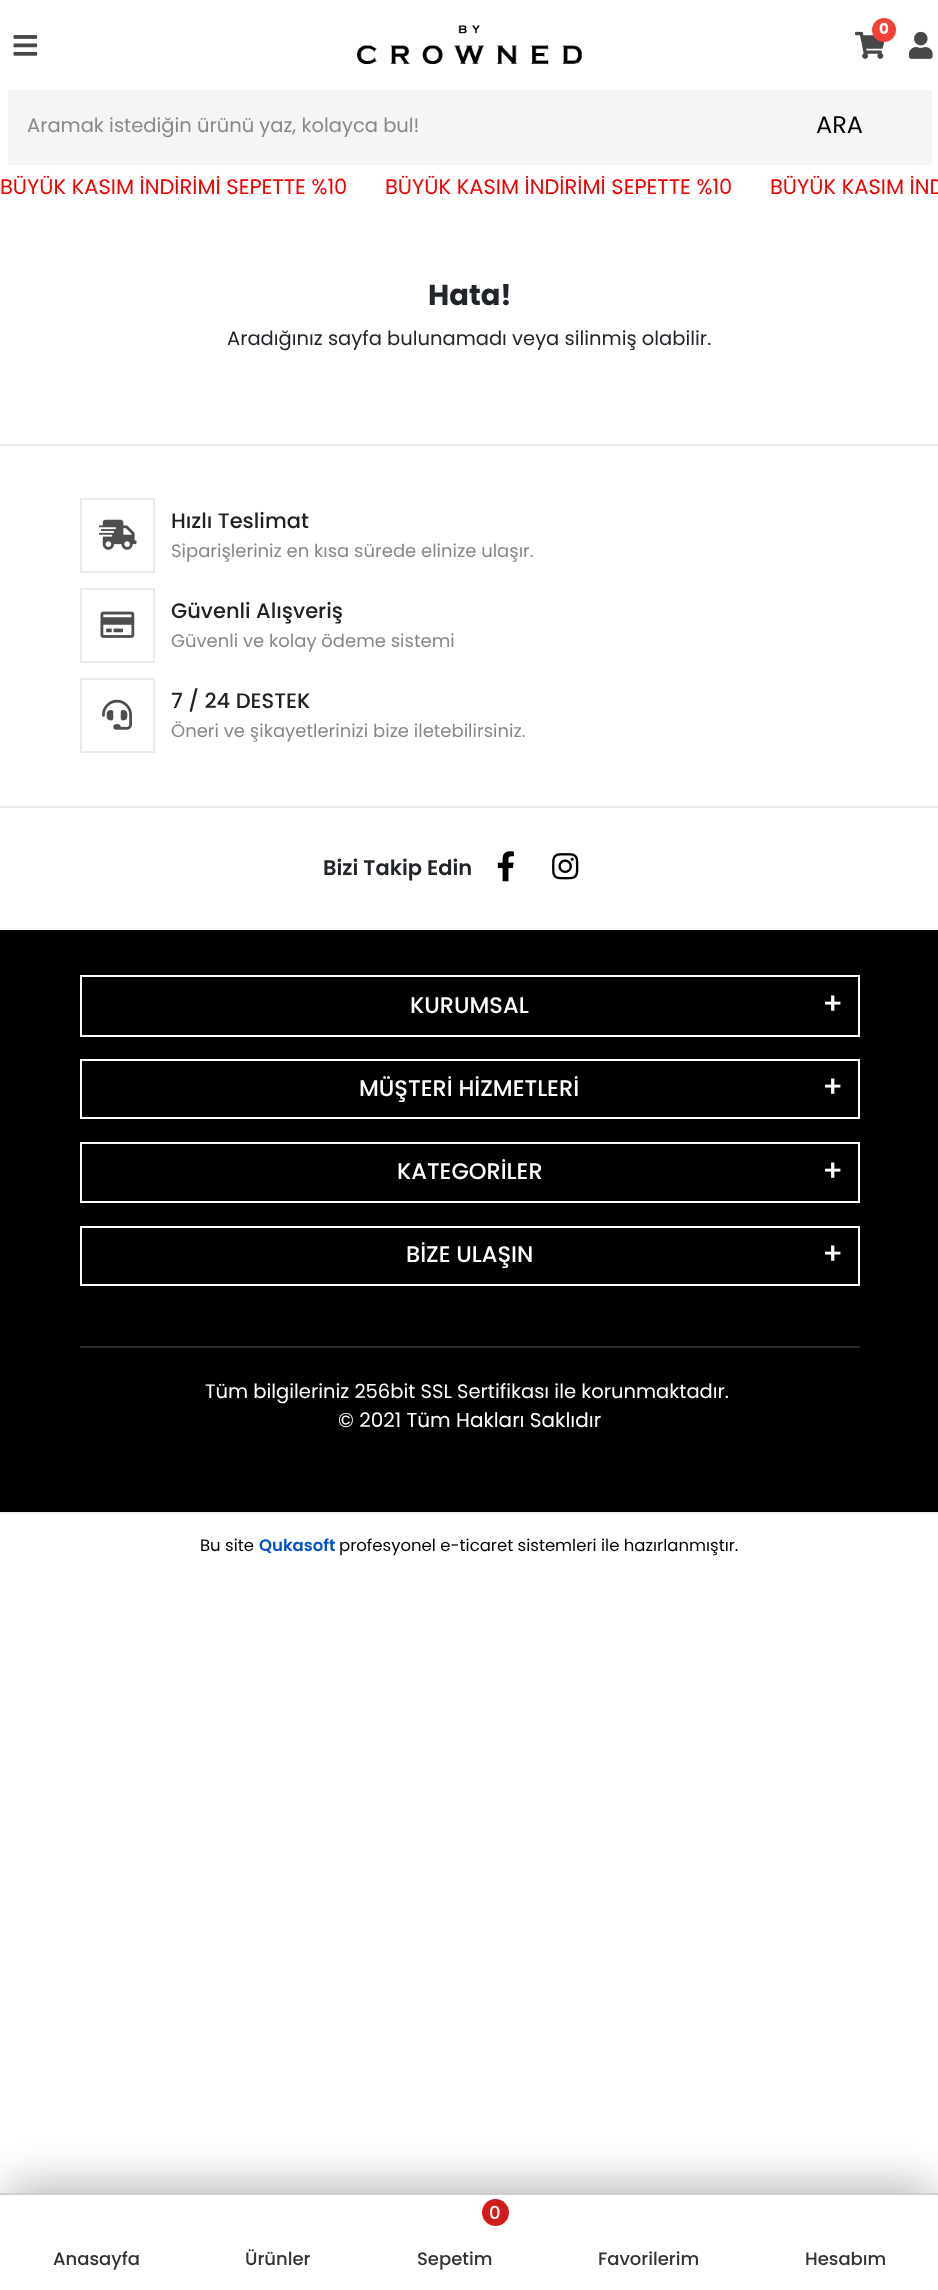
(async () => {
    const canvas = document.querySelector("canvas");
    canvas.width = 938;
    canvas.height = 2290;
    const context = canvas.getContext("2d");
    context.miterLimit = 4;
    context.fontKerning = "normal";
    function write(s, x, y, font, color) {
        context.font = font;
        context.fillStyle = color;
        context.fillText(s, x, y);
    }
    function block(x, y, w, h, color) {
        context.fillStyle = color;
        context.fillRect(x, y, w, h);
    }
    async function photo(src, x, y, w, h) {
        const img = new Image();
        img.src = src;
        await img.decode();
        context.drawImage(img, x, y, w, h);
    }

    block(0, 0, 938, 2290, "rgb(255, 255, 255)");
    await photo("media/1.png", 13, 35, 25, 21);
    await photo("media/2.png", 357, 25, 225, 40);
    await photo("media/3.png", 855, 31, 30, 28);
    context.fillStyle = "rgb(244, 67, 54)";
    context.beginPath();
    context.arc(884, 30, 12, 0, Math.PI * 2);
    context.fill();
    write("0", 879, 34, "bold 15px Poppins", "rgb(255, 255, 255)");
    await photo("media/4.png", 909, 31, 24, 28);
    block(8, 90, 924, 75, "rgb(245, 245, 245)");
    write("Aramak istediğin ürünü yaz, kolayca bul!", 27, 132, "19.5px Poppins", "rgb(136, 136, 136)");
    write("ARA", 816, 133, "24px Poppins", "rgb(0, 0, 0)");
    write("BÜYÜK KASIM İNDİRİMİ SEPETTE %10", 0, 194, "21px Poppins", "rgb(237, 3, 0)");
    write("BÜYÜK KASIM İNDİRİMİ SEPETTE %10", 385, 194, "21px Poppins", "rgb(237, 3, 0)");
    write("BÜYÜK KASIM İND", 770, 194, "21px Poppins", "rgb(237, 3, 0)");
    write("Hata!", 428, 305, "bold 29px Poppins", "rgb(33, 37, 41)");
    write("Aradığınız sayfa bulunamadı veya silinmiş olabilir.", 227, 345, "19.5px Poppins", "rgb(33, 37, 41)");
    block(0, 444, 938, 2, "rgb(235, 235, 235)");
    context.strokeStyle = "rgb(235, 235, 235)";
    context.lineWidth = 2;
    context.strokeRect(81, 499, 73, 73);
    await photo("media/5.png", 99, 519, 38, 31);
    write("Hızlı Teslimat", 171, 528, "500 21px Poppins", "rgb(34, 34, 34)");
    write("Siparişleriniz en kısa sürede elinize ulaşır.", 171, 557, "18px Poppins", "rgb(136, 136, 136)");
    context.strokeRect(81, 589, 73, 73);
    await photo("media/6.png", 100, 611, 35, 27);
    write("Güvenli Alışveriş", 171, 618, "500 21px Poppins", "rgb(34, 34, 34)");
    write("Güvenli ve kolay ödeme sistemi", 171, 647, "18px Poppins", "rgb(136, 136, 136)");
    context.strokeRect(81, 679, 73, 73);
    await photo("media/7.png", 102, 699, 30, 31);
    write("7 / 24 DESTEK", 171, 708, "500 21px Poppins", "rgb(34, 34, 34)");
    write("Öneri ve şikayetlerinizi bize iletebilirsiniz.", 171, 737, "18px Poppins", "rgb(136, 136, 136)");
    block(0, 806, 938, 2, "rgb(235, 235, 235)");
    write("Bizi Takip Edin", 323, 875, "600 21px Poppins", "rgb(33, 37, 41)");
    await photo("media/8.png", 497, 851, 17, 31);
    await photo("media/9.png", 552, 853, 27, 27);
    block(0, 930, 938, 582, "rgb(0, 0, 0)");
    context.strokeStyle = "rgb(255, 255, 255)";
    context.strokeRect(81, 976, 778, 60);
    write("KURUMSAL", 410, 1013, "500 22.5px Poppins", "rgb(255, 255, 255)");
    write("+", 822, 1014, "500 30px Poppins", "rgb(255, 255, 255)");
    context.strokeRect(81, 1060, 778, 58);
    write("MÜŞTERİ HİZMETLERİ", 359, 1096, "500 22.5px Poppins", "rgb(255, 255, 255)");
    write("+", 822, 1097, "500 30px Poppins", "rgb(255, 255, 255)");
    context.strokeRect(81, 1143, 778, 59);
    write("KATEGORİLER", 397, 1179, "500 22.5px Poppins", "rgb(255, 255, 255)");
    write("+", 822, 1181, "500 30px Poppins", "rgb(255, 255, 255)");
    context.strokeRect(81, 1227, 778, 58);
    write("BİZE ULAŞIN", 406, 1262, "500 22.5px Poppins", "rgb(255, 255, 255)");
    write("+", 822, 1264, "500 30px Poppins", "rgb(255, 255, 255)");
    block(80, 1346, 780, 2, "rgb(43, 43, 43)");
    write("Tüm bilgileriniz 256bit SSL Sertifikası ile korunmaktadır.", 205, 1398, "19.5px Poppins", "rgb(255, 255, 255)");
    write("© 2021 Tüm Hakları Saklıdır", 338, 1427, "20px Poppins", "rgb(255, 255, 255)");
    context.fillStyle = "rgba(0, 0, 0, 0.15)";
    context.filter = "blur(22.5px)";
    context.beginPath();
    context.rect(8, 2186, 924, 82);
    context.fill();
    context.filter = "none";
    block(0, 1512, 938, 2, "rgb(238, 238, 238)");
    write("Bu site", 200, 1551, "16.5px Poppins", "rgb(0, 0, 0)");
    write("Qukasoft", 259, 1551, "600 16.5px Poppins", "rgb(5, 82, 198)");
    write("profesyonel e-ticaret sistemleri ile hazırlanmıştır.", 339, 1551, "16.5px Poppins", "rgb(0, 0, 0)");
    context.fillStyle = "rgba(0, 0, 0, 0.15)";
    context.filter = "blur(22.5px)";
    context.beginPath();
    context.rect(8, 2186, 924, 82);
    context.fill();
    context.filter = "none";
    block(0, 2195, 938, 95, "rgb(255, 255, 255)");
    block(0, 2193, 938, 2, "rgb(207, 207, 207)");
    write("Anasayfa", 53, 2265, "500 18px Poppins", "rgb(51, 51, 51)");
    write("Ürünler", 245, 2265, "500 18px Poppins", "rgb(51, 51, 51)");
    context.fillStyle = "rgb(210, 28, 28)";
    context.beginPath();
    context.arc(495.5, 2212.5, 13.5, 0, Math.PI * 2);
    context.fill();
    write("0", 489, 2219, "500 18px Poppins", "rgb(255, 255, 255)");
    write("Sepetim", 417, 2265, "500 18px Poppins", "rgb(51, 51, 51)");
    write("Favorilerim", 598, 2265, "500 18px Poppins", "rgb(51, 51, 51)");
    write("Hesabım", 805, 2265, "500 18px Poppins", "rgb(51, 51, 51)");
})();
